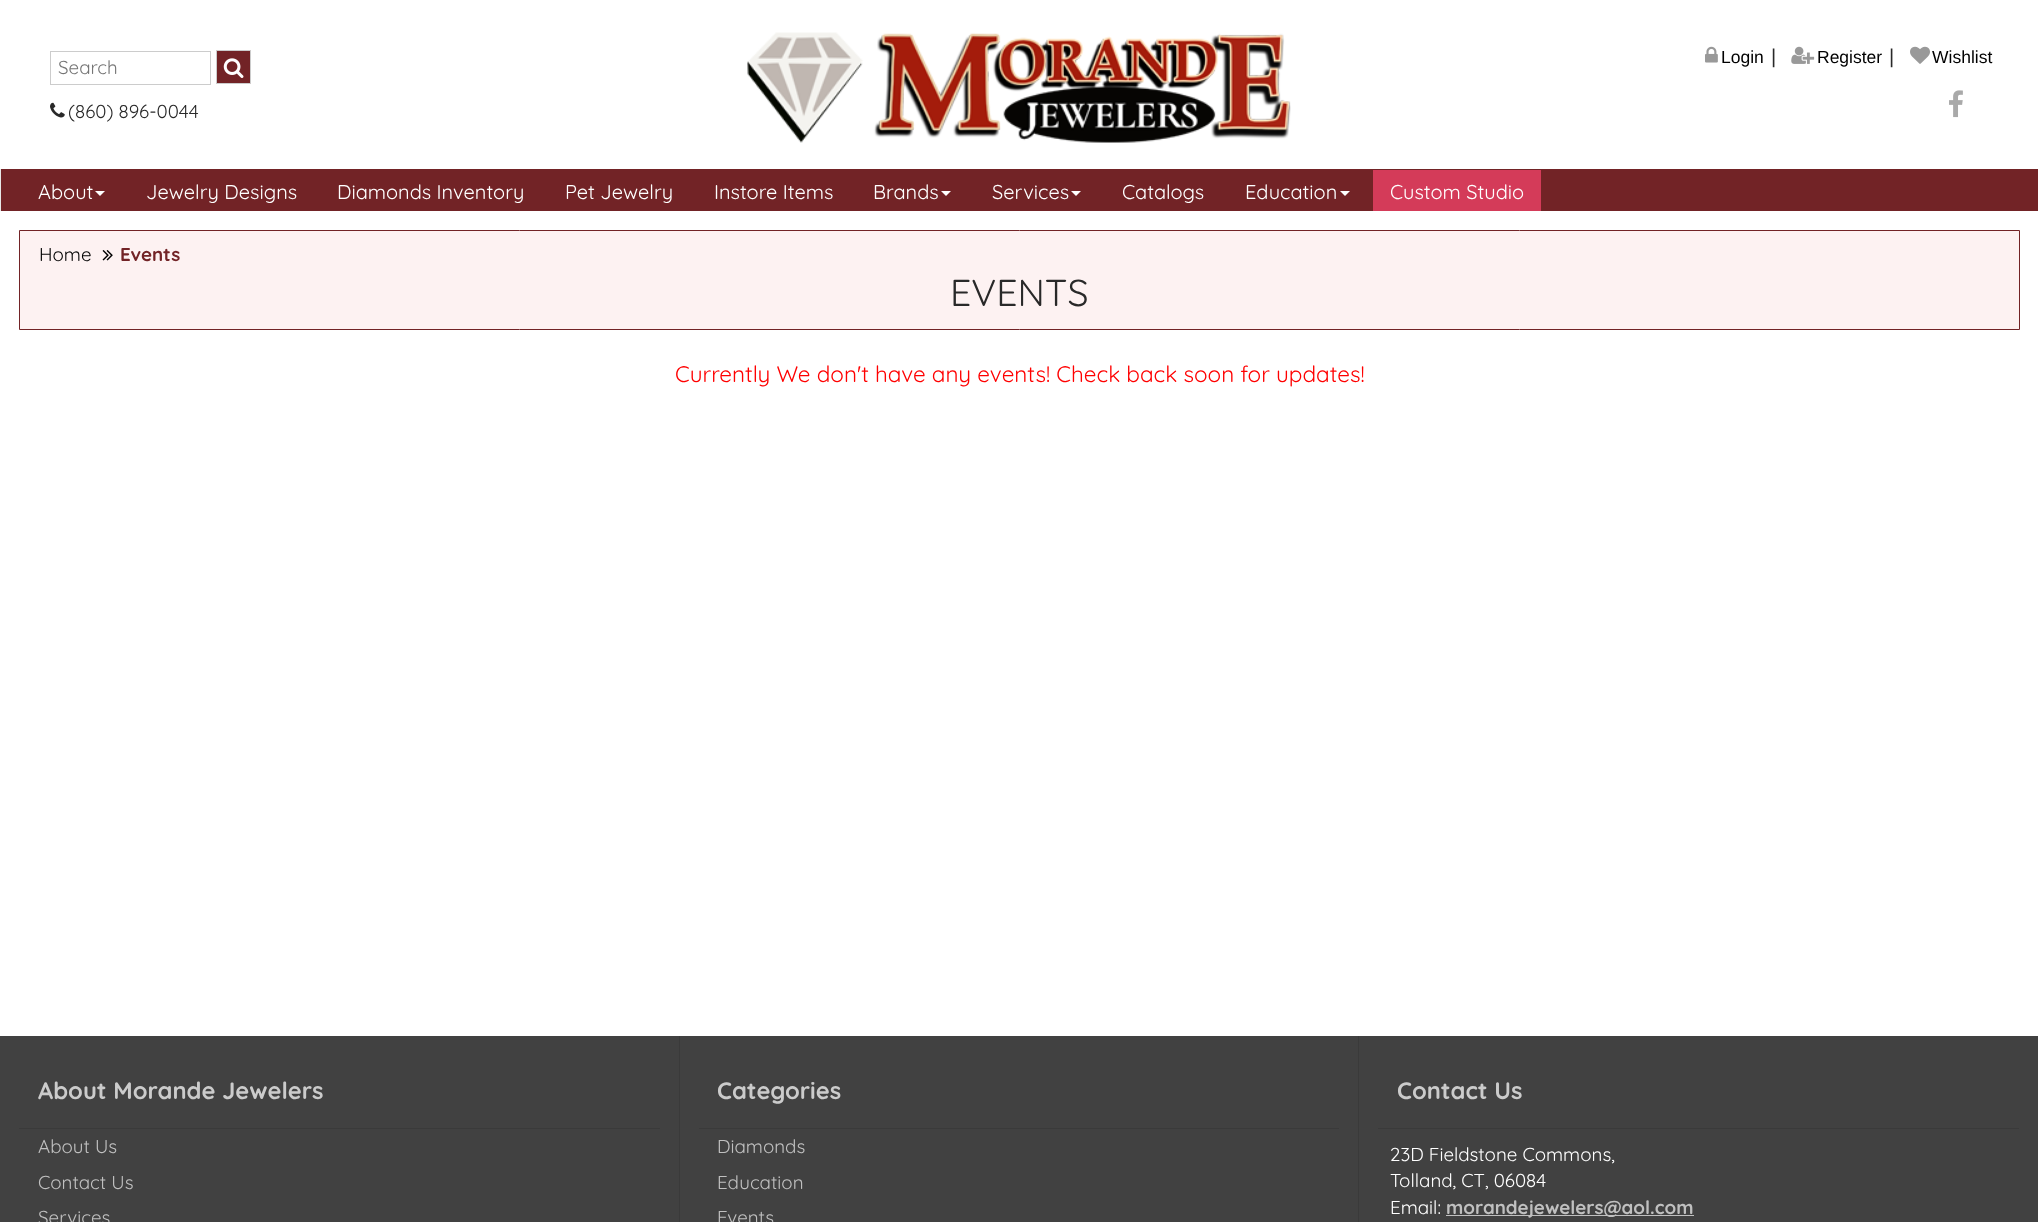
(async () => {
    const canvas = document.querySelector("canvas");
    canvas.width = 2038;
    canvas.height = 1222;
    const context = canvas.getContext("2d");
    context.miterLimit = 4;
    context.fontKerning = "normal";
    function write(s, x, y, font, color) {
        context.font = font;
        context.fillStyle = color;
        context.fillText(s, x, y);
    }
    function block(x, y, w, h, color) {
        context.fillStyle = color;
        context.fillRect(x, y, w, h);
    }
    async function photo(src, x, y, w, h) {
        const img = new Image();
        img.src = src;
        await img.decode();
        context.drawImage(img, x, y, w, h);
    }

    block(0, 0, 2038, 1222, "rgb(255, 255, 255)");
    await photo("media/1.png", 747, 32, 544, 111);
    await photo("media/2.png", 1705, 46, 13, 17);
    write("Login", 1721, 63, "17.5px Liberation Sans", "rgb(0, 0, 0)");
    write("|", 1771, 63, "20px Liberation Sans", "rgb(41, 41, 41)");
    await photo("media/3.png", 1791, 46, 24, 18);
    write("Register", 1817, 63, "17.5px Liberation Sans", "rgb(0, 0, 0)");
    write("|", 1889, 63, "20px Liberation Sans", "rgb(41, 41, 41)");
    await photo("media/4.png", 1910, 46, 20, 18);
    write("Wishlist", 1932, 63, "17.5px Liberation Sans", "rgb(0, 0, 0)");
    await photo("media/5.png", 1949, 90, 14, 28);
    context.strokeStyle = "rgb(204, 204, 204)";
    context.strokeRect(50.5, 51.5, 160, 33);
    write("Search", 58, 74, "18.75px Quicksand", "rgb(117, 117, 117)");
    context.fillStyle = "rgb(114, 35, 38)";
    context.beginPath();
    context.rect(216.5, 50.5, 34, 33);
    context.fill();
    context.stroke();
    await photo("media/6.png", 223, 58, 21, 20);
    await photo("media/7.png", 50, 102, 15, 16);
    write("(860) 896-0044", 68, 118, "18.75px Quicksand", "rgb(41, 41, 41)");
    block(1, 169, 2037, 42, "rgb(114, 35, 38)");
    block(0, 169, 1, 42, "rgb(231, 231, 231)");
    write("About", 38, 199, "20px Quicksand", "rgb(255, 255, 255)");
    context.beginPath();
    context.moveTo(95, 191);
    context.lineTo(105, 191);
    context.lineTo(100, 196);
    context.closePath();
    context.fill();
    write("Jewelry Designs", 146, 199, "20px Quicksand", "rgb(255, 255, 255)");
    write("Diamonds Inventory", 337, 199, "20px Quicksand", "rgb(255, 255, 255)");
    write("Pet Jewelry", 565, 199, "20px Quicksand", "rgb(255, 255, 255)");
    write("Instore Items", 714, 199, "20px Quicksand", "rgb(255, 255, 255)");
    write("Brands", 873, 199, "20px Quicksand", "rgb(255, 255, 255)");
    context.beginPath();
    context.moveTo(941, 191);
    context.lineTo(951, 191);
    context.lineTo(946, 196);
    context.closePath();
    context.fill();
    write("Services", 992, 199, "20px Quicksand", "rgb(255, 255, 255)");
    context.beginPath();
    context.moveTo(1071, 191);
    context.lineTo(1081, 191);
    context.lineTo(1076, 196);
    context.closePath();
    context.fill();
    write("Catalogs", 1122, 199, "20px Quicksand", "rgb(255, 255, 255)");
    write("Education", 1245, 199, "20px Quicksand", "rgb(255, 255, 255)");
    context.beginPath();
    context.moveTo(1340, 191);
    context.lineTo(1350, 191);
    context.lineTo(1345, 196);
    context.closePath();
    context.fill();
    block(1373, 170, 168, 41, "rgb(212, 59, 89)");
    write("Custom Studio", 1390, 199, "20px Quicksand", "rgb(255, 255, 255)");
    context.fillStyle = "rgb(253, 242, 242)";
    context.beginPath();
    context.rect(19.5, 230.5, 2000, 99);
    context.fill();
    context.strokeStyle = "rgb(114, 35, 38)";
    context.stroke();
    write("Home", 39, 261, "18.75px Quicksand", "rgb(0, 0, 0)");
    await photo("media/8.png", 102, 250, 11, 11);
    write("Events", 120, 261, "bold 18.75px Quicksand", "rgb(114, 35, 38)");
    write("EVENTS", 950, 306, "37.5px Quicksand", "rgb(41, 41, 41)");
    write("Currently We don't have any events! Check back soon for updates!", 675, 382, "22.5px Quicksand", "rgb(255, 0, 0)");
    block(0, 1036, 2038, 186, "rgb(65, 65, 65)");
    block(679, 1036, 1, 186, "rgb(58, 58, 58)");
    block(19, 1128, 641, 1, "rgb(58, 58, 58)");
    write("About Morande Jewelers", 38, 1099, "bold 23.75px Quicksand", "rgb(203, 203, 203)");
    write("About Us", 38, 1153, "18.75px Quicksand", "rgb(192, 192, 192)");
    write("Contact Us", 38, 1189, "18.75px Quicksand", "rgb(192, 192, 192)");
    write("Services", 38, 1224, "18.75px Quicksand", "rgb(192, 192, 192)");
    block(1358, 1036, 1, 186, "rgb(58, 58, 58)");
    block(699, 1128, 640, 1, "rgb(58, 58, 58)");
    write("Categories", 717, 1099, "bold 23.75px Quicksand", "rgb(203, 203, 203)");
    write("Diamonds", 717, 1153, "18.75px Quicksand", "rgb(192, 192, 192)");
    write("Education", 717, 1189, "18.75px Quicksand", "rgb(192, 192, 192)");
    write("Events", 717, 1224, "18.75px Quicksand", "rgb(192, 192, 192)");
    block(1378, 1128, 641, 1, "rgb(58, 58, 58)");
    write("Contact Us", 1397, 1099, "bold 23.75px Quicksand", "rgb(203, 203, 203)");
    write("23D Fieldstone Commons,", 1390, 1161, "18.75px Quicksand", "rgb(255, 255, 255)");
    write("Tolland, CT, 06084", 1390, 1187, "18.75px Quicksand", "rgb(255, 255, 255)");
    write("Email:", 1390, 1214, "18.75px Quicksand", "rgb(255, 255, 255)");
    block(1446, 1215, 248, 1, "rgb(192, 192, 192)");
    write("morandejewelers@aol.com", 1446, 1214, "bold 18.75px Quicksand", "rgb(192, 192, 192)");
})();
